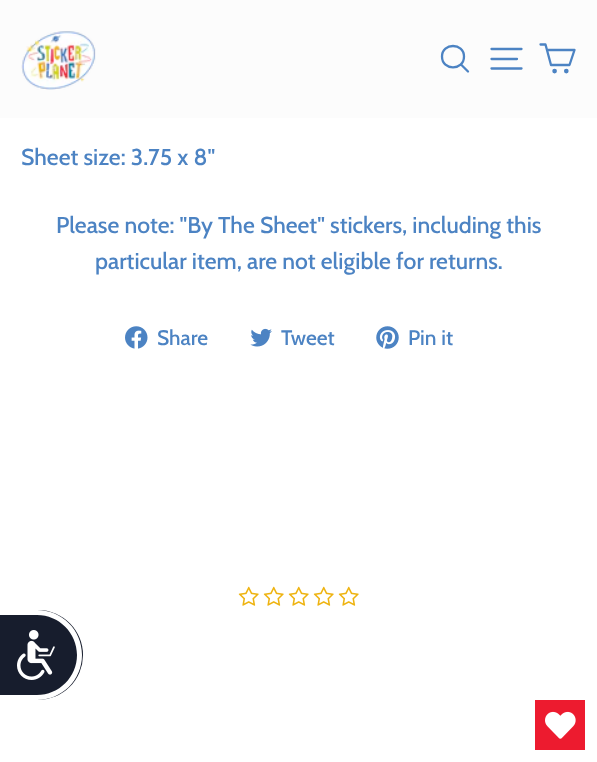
(async () => {
    const canvas = document.querySelector("canvas");
    canvas.width = 597;
    canvas.height = 762;
    const context = canvas.getContext("2d");
    context.miterLimit = 4;
    context.fontKerning = "normal";
    function write(s, x, y, font, color) {
        context.font = font;
        context.fillStyle = color;
        context.fillText(s, x, y);
    }
    function block(x, y, w, h, color) {
        context.fillStyle = color;
        context.fillRect(x, y, w, h);
    }
    async function photo(src, x, y, w, h) {
        const img = new Image();
        img.src = src;
        await img.decode();
        context.drawImage(img, x, y, w, h);
    }

    block(0, 0, 597, 762, "rgb(255, 255, 255)");
    block(0, 0, 597, 118, "rgb(252, 252, 252)");
    await photo("media/1.png", 21, 31, 75, 59);
    context.beginPath();
    context.moveTo(464, 56.5);
    context.bezierCurveTo(464, 71, 442, 71, 442, 56.5);
    context.bezierCurveTo(442, 42.5, 464, 42.5, 464, 56.5);
    context.closePath();
    context.moveTo(468, 71.5);
    context.lineTo(461, 64.5);
    context.strokeStyle = "rgb(76, 131, 195)";
    context.lineWidth = 2.3;
    context.lineCap = "round";
    context.lineJoin = "round";
    context.stroke();
    context.beginPath();
    context.moveTo(491.5, 49);
    context.lineTo(521.5, 49);
    context.moveTo(491.5, 59);
    context.lineTo(517, 59);
    context.moveTo(491.5, 68.5);
    context.lineTo(521.5, 68.5);
    context.stroke();
    context.beginPath();
    context.moveTo(547, 50);
    context.lineTo(574.5, 50);
    context.lineTo(569.5, 65);
    context.lineTo(551, 65);
    context.lineTo(545.5, 44.5);
    context.lineTo(540.5, 44.5);
    context.stroke();
    context.beginPath();
    context.arc(554.6, 71.1, 1.2, 0, Math.PI * 2);
    context.stroke();
    context.beginPath();
    context.arc(566.3, 71.1, 1.2, 0, Math.PI * 2);
    context.stroke();
    write("Sheet size: 3.75 x 8\"", 21, 165, "500 23px Cabin", "rgb(76, 131, 195)");
    write("Please note: \"By The Sheet\" stickers, including this", 56, 233, "500 23px Cabin", "rgb(76, 131, 195)");
    write("particular item, are not eligible for returns.", 95, 269, "500 23px Cabin", "rgb(76, 131, 195)");
    await photo("media/2.png", 125, 326, 23, 23);
    write("Share", 157, 345, "500 21px Cabin", "rgb(76, 131, 195)");
    await photo("media/3.png", 250, 328, 22, 19);
    write("Tweet", 281, 345, "500 21px Cabin", "rgb(76, 131, 195)");
    await photo("media/4.png", 376, 326, 23, 23);
    write("Pin it", 408, 345, "500 21px Cabin", "rgb(76, 131, 195)");
    await photo("media/5.png", 238, 586, 21, 20);
    await photo("media/5.png", 263, 586, 21, 20);
    await photo("media/5.png", 288, 586, 21, 20);
    await photo("media/5.png", 313, 586, 21, 20);
    await photo("media/5.png", 338, 586, 21, 20);
    context.fillStyle = "rgb(23, 29, 45)";
    context.beginPath();
    context.roundRect(0, 610, 83, 90, [0, 45, 45, 0]);
    context.fill();
    context.fillStyle = "rgb(255, 255, 255)";
    context.beginPath();
    context.moveTo(0, 610);
    context.lineTo(37, 610);
    context.bezierCurveTo(62, 610, 82, 630, 82, 655);
    context.bezierCurveTo(82, 680, 62, 700, 37, 700);
    context.lineTo(0, 700);
    context.closePath();
    context.moveTo(0, 615);
    context.lineTo(37, 615);
    context.bezierCurveTo(59, 615, 77, 633, 77, 655);
    context.bezierCurveTo(77, 677, 59, 695, 37, 695);
    context.lineTo(0, 695);
    context.closePath();
    context.fill("evenodd");
    await photo("media/6.png", 17, 630, 38, 50);
    block(535, 700, 50, 50, "rgb(237, 27, 47)");
    await photo("media/7.png", 545, 711, 31, 28);
})();
